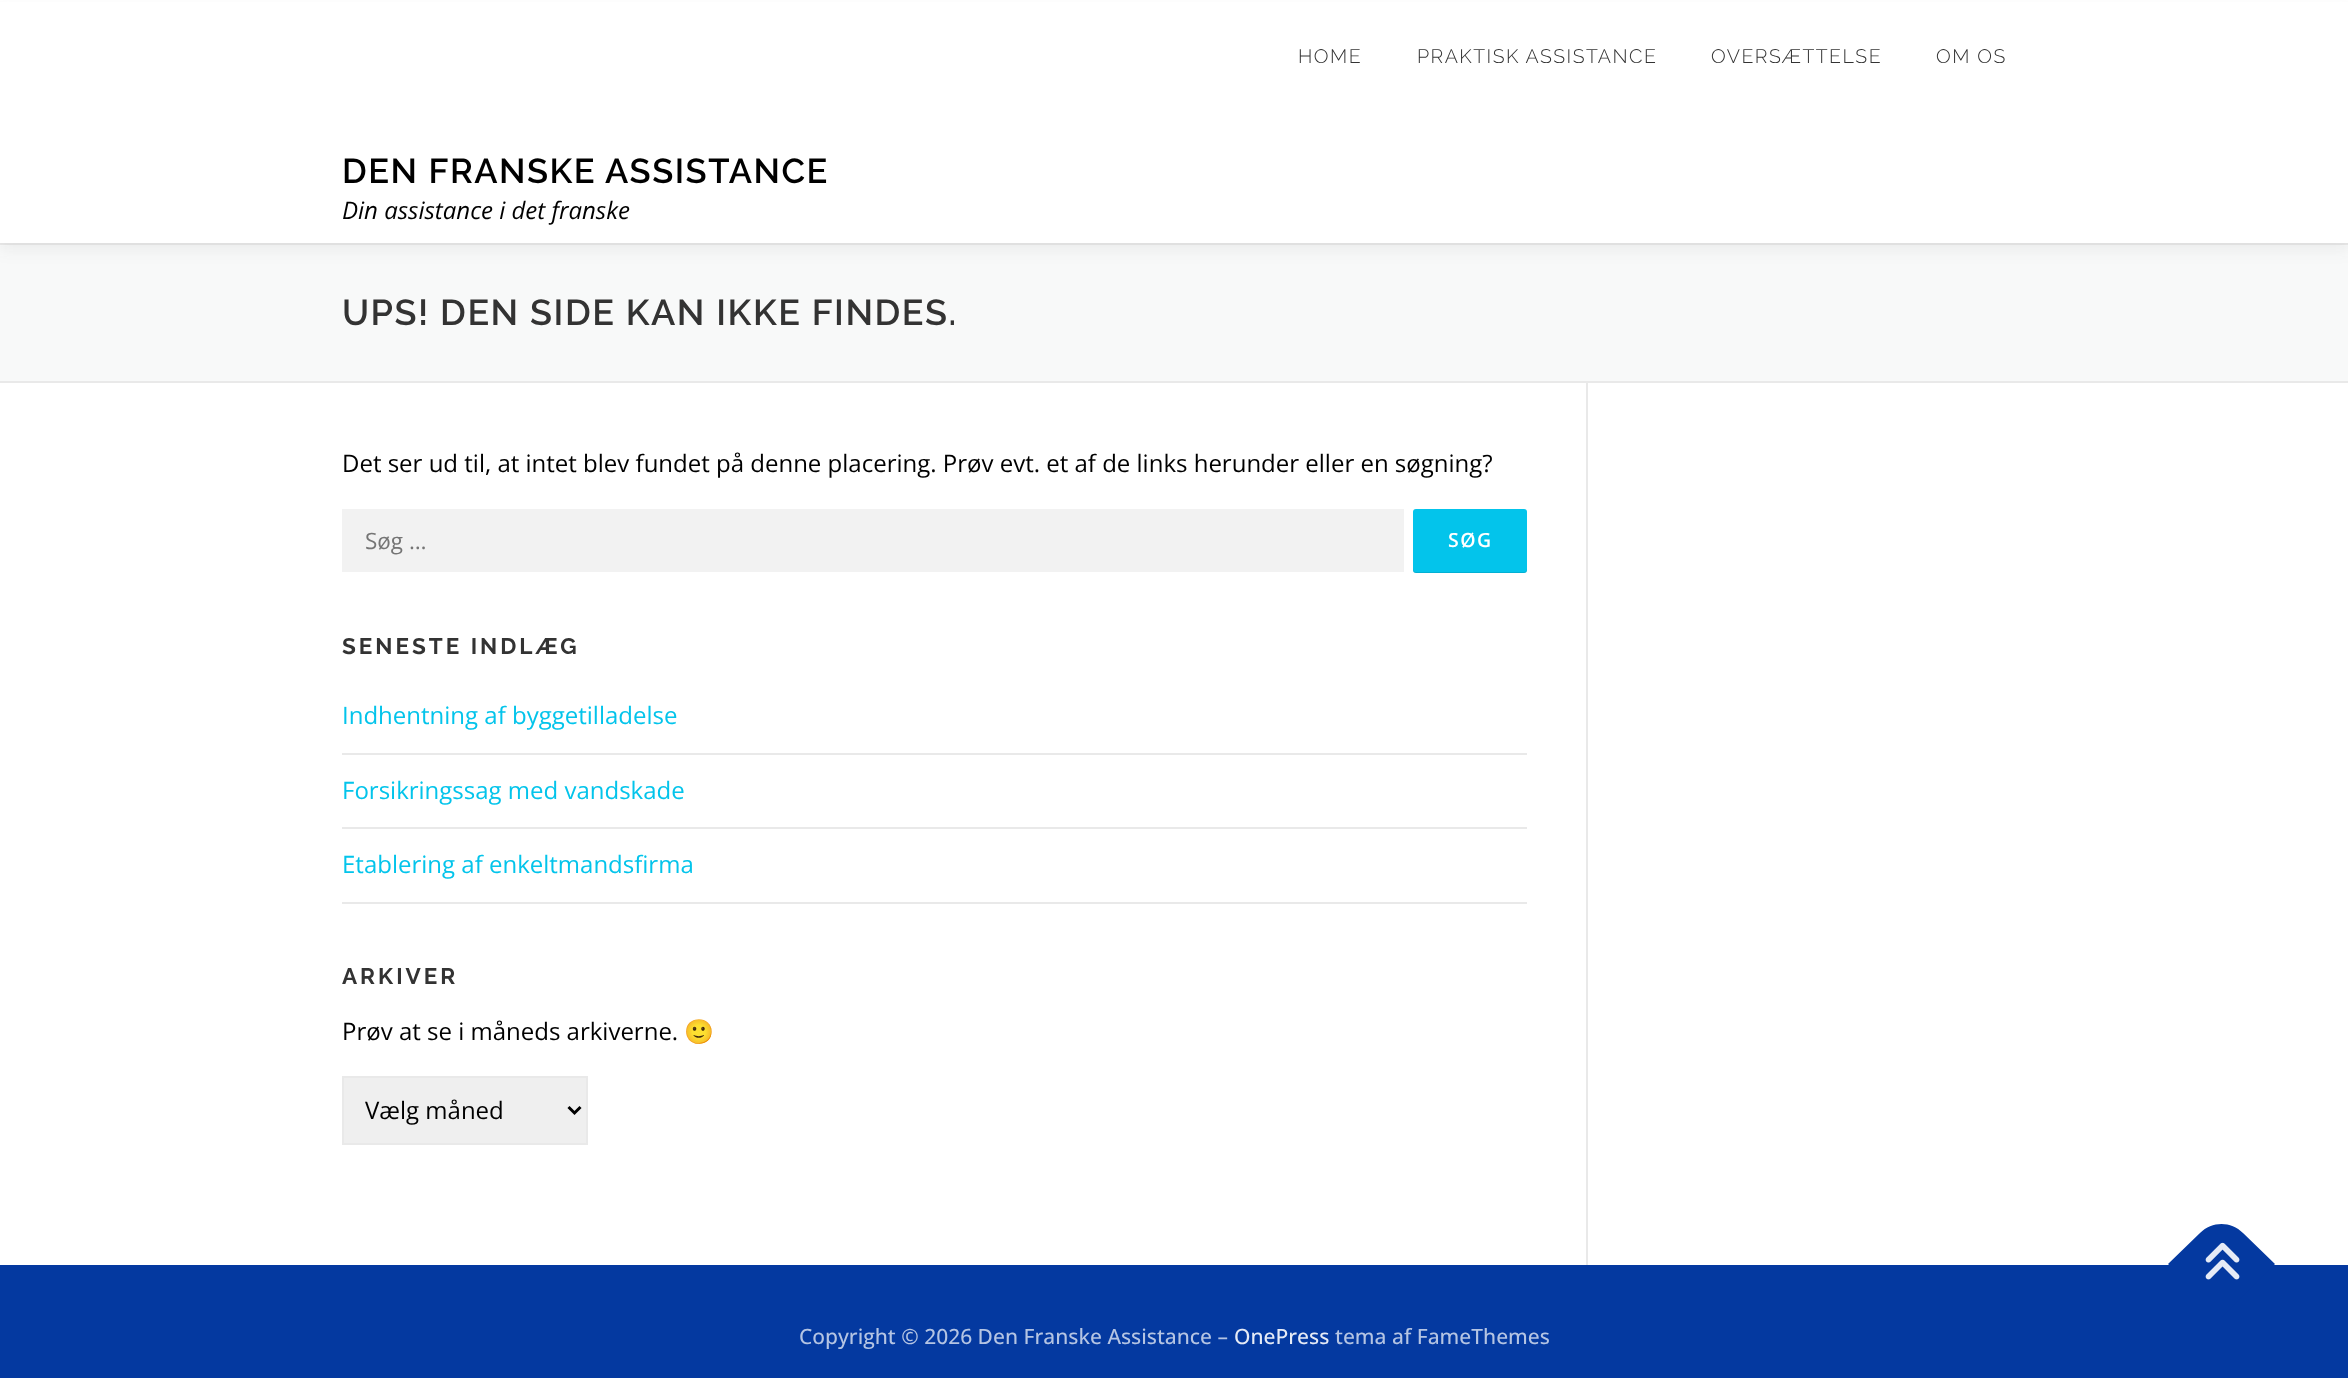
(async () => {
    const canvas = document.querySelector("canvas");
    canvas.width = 2348;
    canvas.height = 1378;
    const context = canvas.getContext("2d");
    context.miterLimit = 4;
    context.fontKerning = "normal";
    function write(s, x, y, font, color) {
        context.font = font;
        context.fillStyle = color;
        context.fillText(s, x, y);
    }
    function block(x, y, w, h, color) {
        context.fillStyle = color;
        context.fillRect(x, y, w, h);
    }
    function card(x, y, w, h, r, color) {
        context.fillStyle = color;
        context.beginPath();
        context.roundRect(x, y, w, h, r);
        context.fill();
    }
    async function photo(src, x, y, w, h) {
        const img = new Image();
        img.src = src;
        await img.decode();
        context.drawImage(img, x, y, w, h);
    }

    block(0, 0, 2348, 1378, "rgb(255, 255, 255)");
    block(0, 245, 2348, 136, "rgb(248, 249, 249)");
    block(0, 243, 2348, 2, "rgb(233, 233, 233)");
    context.fillStyle = "rgba(50, 50, 50, 0.06)";
    context.filter = "blur(7.5px)";
    context.beginPath();
    context.rect(0, 8, 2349, 243);
    context.fill();
    context.filter = "none";
    block(0, 2, 2348, 241, "rgb(255, 255, 255)");
    context.letterSpacing = "1.5px";
    write("HOME", 1298, 63, "300 19.5px Raleway", "rgb(51, 51, 51)");
    write("PRAKTISK ASSISTANCE", 1417, 63, "300 19.5px Raleway", "rgb(51, 51, 51)");
    write("OVERSÆTTELSE", 1711, 63, "300 19.5px Raleway", "rgb(51, 51, 51)");
    write("OM OS", 1936, 63, "300 19.5px Raleway", "rgb(51, 51, 51)");
    write("DEN FRANSKE ASSISTANCE", 342, 183, "600 34.5px Raleway", "rgb(0, 0, 0)");
    context.letterSpacing = "0px";
    write("Din assistance i det franske", 342, 219, "italic 24px Open Sans", "rgb(0, 0, 0)");
    block(0, 381, 2348, 2, "rgb(233, 233, 233)");
    context.letterSpacing = "1.5px";
    write("UPS! DEN SIDE KAN IKKE FINDES.", 342, 325, "600 36px Raleway", "rgb(51, 51, 51)");
    block(1586, 383, 2, 882, "rgb(233, 233, 233)");
    context.letterSpacing = "0px";
    write("Det ser ud til, at intet blev fundet på denne placering. Prøv evt. et af de links herunder eller en søgning?", 342, 472, "24px Open Sans", "rgb(0, 0, 0)");
    block(342, 509, 1062, 63, "rgb(242, 242, 242)");
    write("Søg …", 365, 549, "22.5px Open Sans", "rgb(117, 117, 117)");
    card(1413, 509, 114, 64, 3, "rgb(3, 196, 235)");
    context.fillStyle = "rgba(0, 0, 0, 0.1)";
    context.beginPath();
    context.moveTo(1413, 568);
    context.lineTo(1413, 570);
    context.bezierCurveTo(1413, 572, 1414, 573, 1416, 573);
    context.lineTo(1524, 573);
    context.bezierCurveTo(1526, 573, 1527, 572, 1527, 570);
    context.lineTo(1527, 568);
    context.bezierCurveTo(1527, 570, 1526, 572, 1524, 572);
    context.lineTo(1416, 572);
    context.bezierCurveTo(1414, 572, 1413, 570, 1413, 568);
    context.closePath();
    context.fill();
    context.letterSpacing = "1.5px";
    write("SØG", 1448, 547, "600 19.5px Open Sans", "rgb(255, 255, 255)");
    context.letterSpacing = "3px";
    write("SENESTE INDLÆG", 342, 654, "bold 22.5px Raleway", "rgb(51, 51, 51)");
    block(342, 753, 1185, 2, "rgb(233, 233, 233)");
    context.letterSpacing = "0px";
    write("Indhentning af byggetilladelse", 342, 724, "24px Open Sans", "rgb(3, 196, 235)");
    block(342, 827, 1185, 2, "rgb(233, 233, 233)");
    write("Forsikringssag med vandskade", 342, 799, "24px Open Sans", "rgb(3, 196, 235)");
    block(342, 902, 1185, 2, "rgb(233, 233, 233)");
    write("Etablering af enkeltmandsfirma", 342, 873, "24px Open Sans", "rgb(3, 196, 235)");
    context.letterSpacing = "3px";
    write("ARKIVER", 342, 984, "bold 22.5px Raleway", "rgb(51, 51, 51)");
    context.letterSpacing = "0px";
    write("Prøv at se i måneds arkiverne.", 342, 1040, "24px Open Sans", "rgb(0, 0, 0)");
    write("🙂", 684, 1040, "24px Noto Color Emoji", "rgb(0, 0, 0)");
    context.fillStyle = "rgb(239, 239, 239)";
    context.beginPath();
    context.rect(343, 1077, 244, 67);
    context.fill();
    context.strokeStyle = "rgb(233, 233, 233)";
    context.lineWidth = 2;
    context.stroke();
    context.beginPath();
    context.moveTo(568.5, 1107);
    context.lineTo(574.5, 1113);
    context.lineTo(580.5, 1107);
    context.strokeStyle = "rgb(0, 0, 0)";
    context.lineWidth = 3;
    context.stroke();
    write("Vælg måned", 365, 1119, "24px Open Sans", "rgb(0, 0, 0)");
    block(0, 1265, 2348, 113, "rgb(4, 57, 160)");
    context.beginPath();
    context.moveTo(2168, 1264);
    context.lineTo(2200, 1233);
    context.bezierCurveTo(2212, 1221, 2231, 1221, 2243, 1233);
    context.lineTo(2275, 1264);
    context.lineTo(2222, 1317);
    context.closePath();
    context.fill();
    await photo("media/1.png", 2205, 1242, 35, 38);
    write("Copyright © 2026 Den Franske Assistance –", 799, 1344, "500 21px Open Sans", "rgb(180, 196, 227)");
    write("OnePress", 1234, 1344, "500 21px Open Sans", "rgb(230, 235, 246)");
    write("tema af FameThemes", 1335, 1344, "500 21px Open Sans", "rgb(180, 196, 227)");
})();
